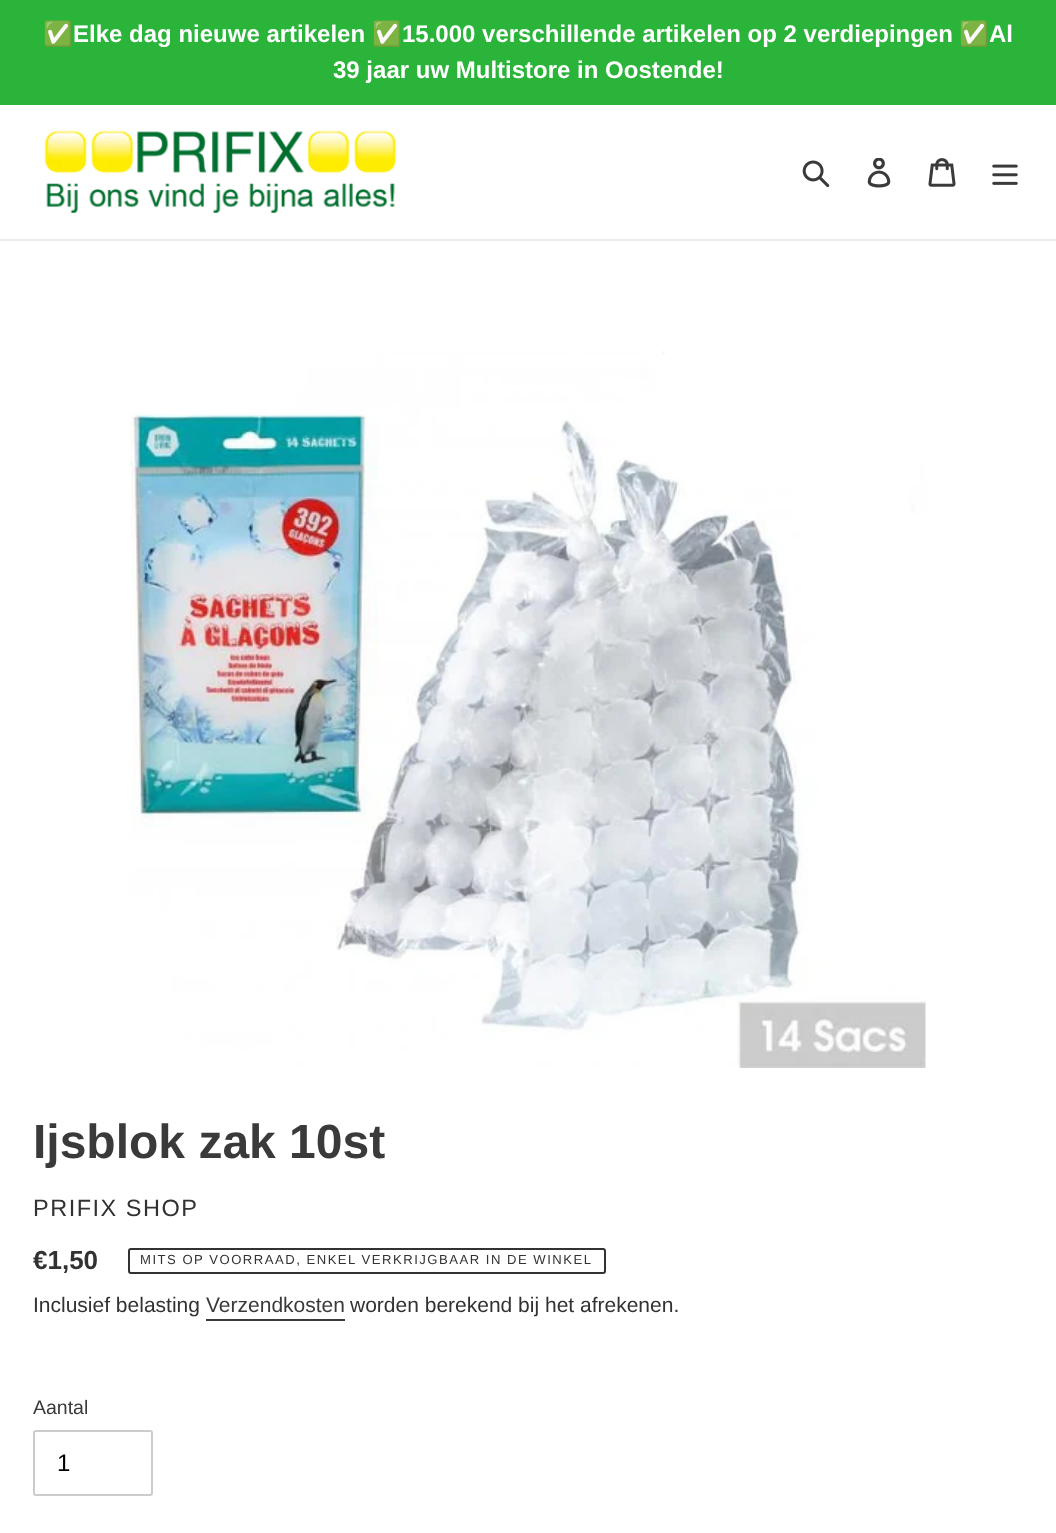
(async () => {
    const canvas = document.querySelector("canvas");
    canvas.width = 1056;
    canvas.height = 1533;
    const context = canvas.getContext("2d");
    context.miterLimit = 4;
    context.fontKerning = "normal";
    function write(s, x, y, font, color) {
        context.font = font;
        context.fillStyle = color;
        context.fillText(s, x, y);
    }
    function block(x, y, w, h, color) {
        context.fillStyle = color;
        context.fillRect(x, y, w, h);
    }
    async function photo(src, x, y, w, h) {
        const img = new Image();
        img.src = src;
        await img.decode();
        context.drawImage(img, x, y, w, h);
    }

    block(0, 0, 1056, 1533, "rgb(255, 255, 255)");
    block(0, 0, 1056, 105, "rgb(43, 180, 58)");
    write("✅", 43, 42, "bold 24px Noto Color Emoji", "rgb(255, 255, 255)");
    write("Elke dag nieuwe artikelen", 73, 42, "bold 24px Liberation Sans", "rgb(255, 255, 255)");
    write("✅", 372, 42, "bold 24px Noto Color Emoji", "rgb(255, 255, 255)");
    write("15.000 verschillende artikelen op 2 verdiepingen", 402, 42, "bold 24px Liberation Sans", "rgb(255, 255, 255)");
    write("✅", 959, 42, "bold 24px Noto Color Emoji", "rgb(255, 255, 255)");
    write("Al", 989, 42, "bold 24px Liberation Sans", "rgb(255, 255, 255)");
    write("39 jaar uw Multistore in Oostende!", 333, 78, "bold 24px Liberation Sans", "rgb(255, 255, 255)");
    block(0, 239, 1056, 2, "rgb(235, 235, 235)");
    await photo("media/1.png", 44, 130, 353, 84);
    await photo("media/2.png", 802, 160, 28, 28);
    await photo("media/3.png", 867, 158, 24, 30);
    await photo("media/4.png", 928, 158, 28, 29);
    await photo("media/5.png", 992, 164, 26, 21);
    await photo("media/6.png", 130, 351, 796, 717);
    write("Ijsblok zak 10st", 33, 1158, "bold 48px Liberation Sans", "rgb(58, 58, 58)");
    context.letterSpacing = "1.5px";
    write("PRIFIX SHOP", 33, 1216, "23.5px Liberation Sans", "rgb(51, 50, 50)");
    context.letterSpacing = "0px";
    write("€1,50", 33, 1269, "bold 26px Liberation Sans", "rgb(51, 50, 50)");
    context.beginPath();
    context.roundRect(129, 1249, 476, 24, 2);
    context.strokeStyle = "rgb(51, 50, 50)";
    context.lineWidth = 2;
    context.stroke();
    context.letterSpacing = "1.5px";
    write("MITS OP VOORRAAD, ENKEL VERKRIJGBAAR IN DE WINKEL", 140, 1264, "13.1px Liberation Sans", "rgb(51, 50, 50)");
    context.letterSpacing = "0px";
    write("Inclusief belasting", 33, 1312, "21px Liberation Sans", "rgb(51, 50, 50)");
    write("Verzendkosten", 206, 1312, "21px Liberation Sans", "rgb(58, 58, 58)");
    block(206, 1319, 139, 2, "rgb(58, 58, 58)");
    write("worden berekend bij het afrekenen.", 350, 1312, "21px Liberation Sans", "rgb(51, 50, 50)");
    write("Aantal", 33, 1414, "19.5px Liberation Sans", "rgb(58, 58, 58)");
    context.beginPath();
    context.roundRect(34, 1431, 118, 64, 2);
    context.strokeStyle = "rgb(204, 204, 204)";
    context.stroke();
    write("1", 57, 1471, "24px Liberation Sans", "rgb(0, 0, 0)");
})();
